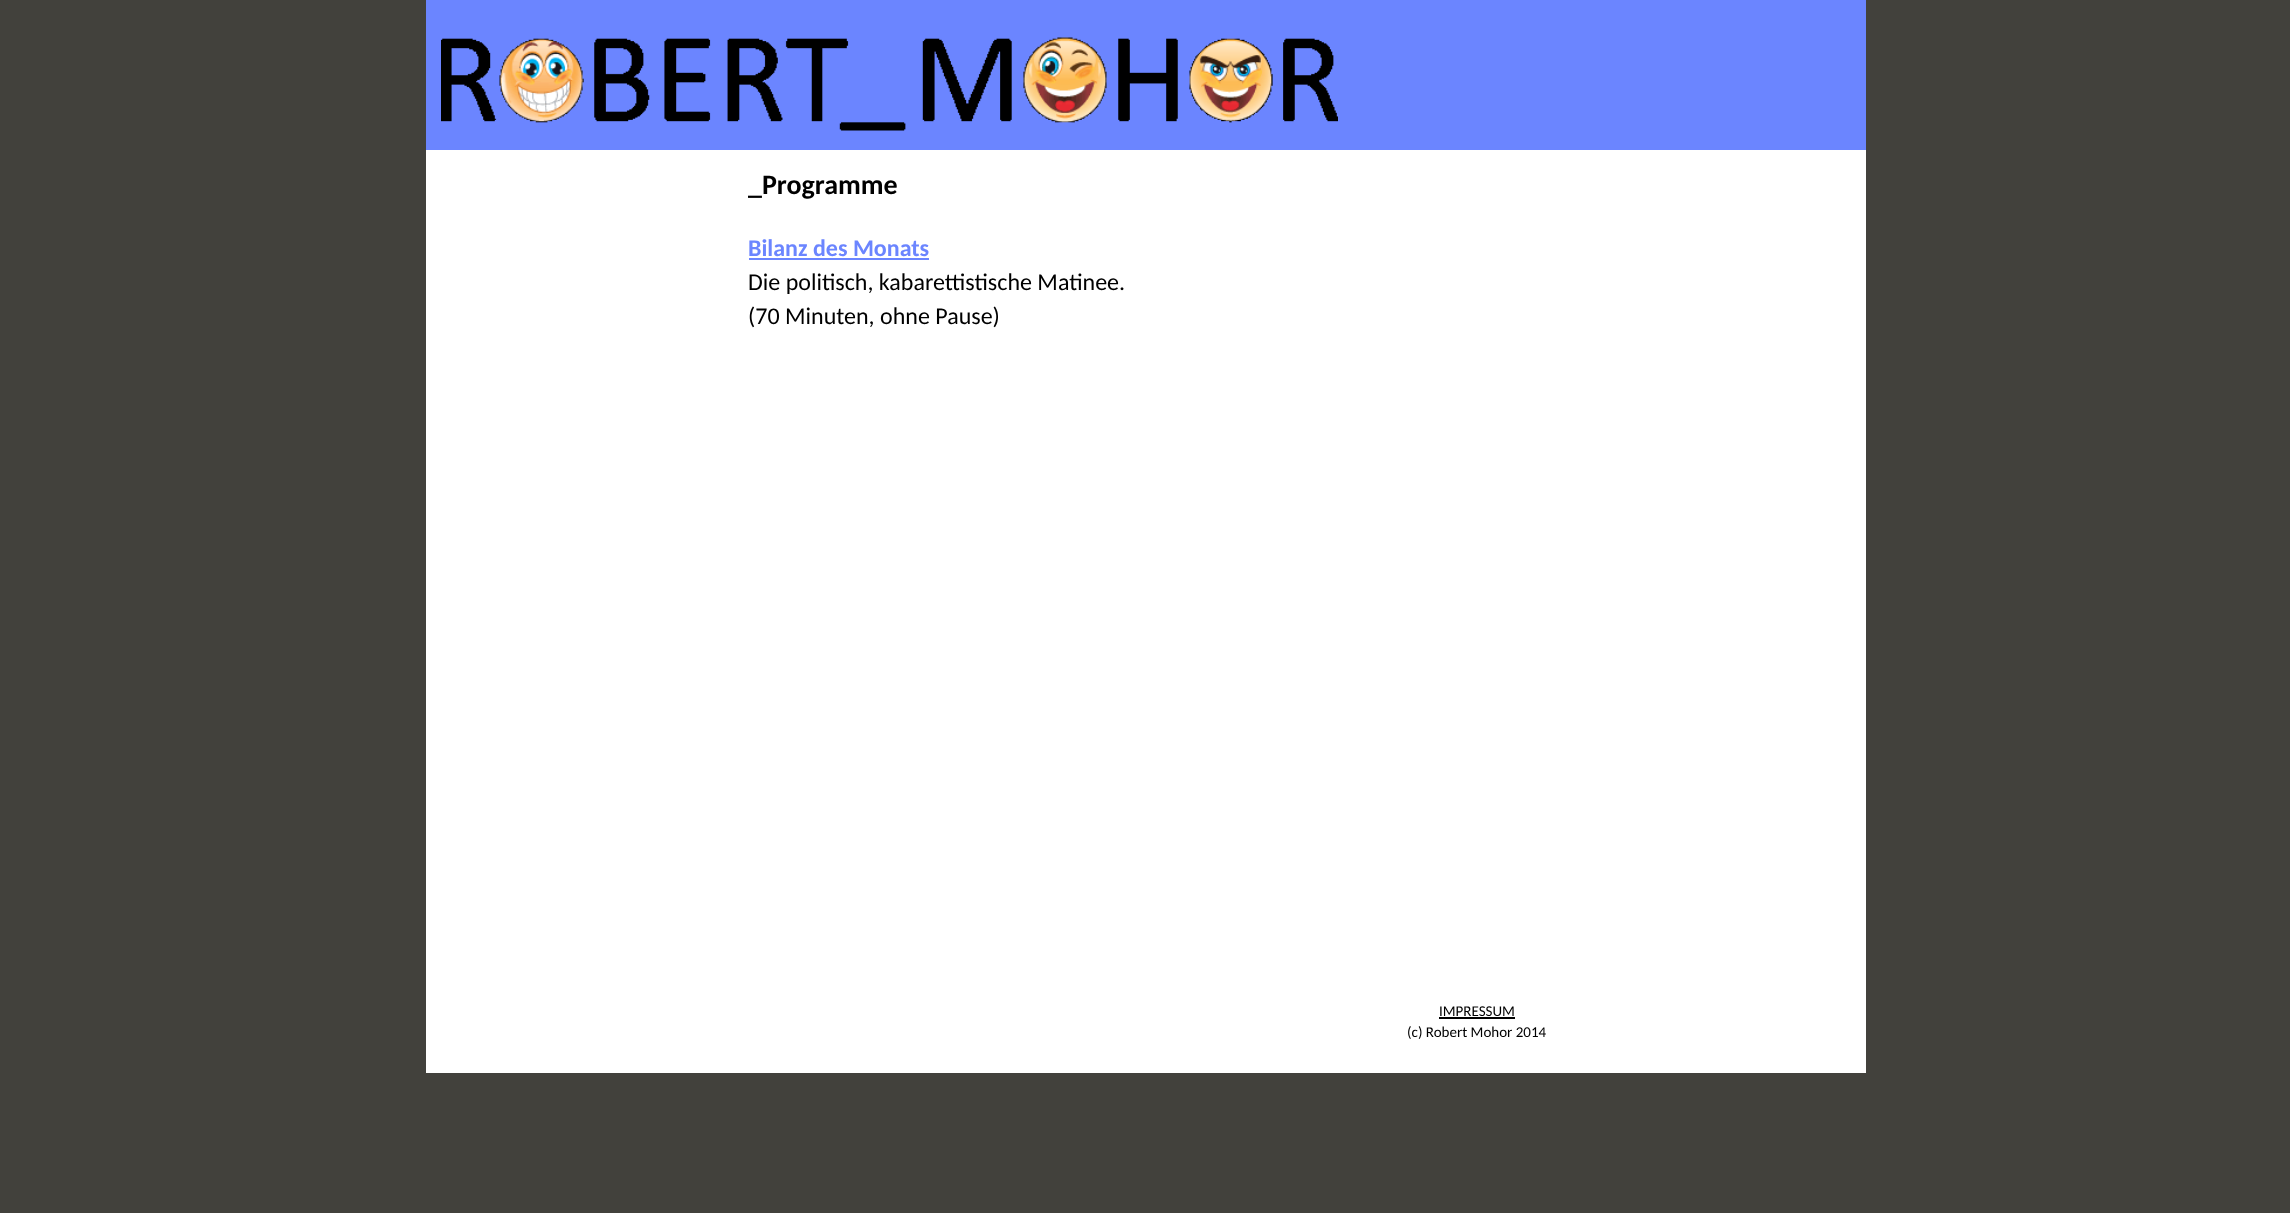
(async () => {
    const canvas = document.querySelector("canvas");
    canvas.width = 2290;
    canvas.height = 1213;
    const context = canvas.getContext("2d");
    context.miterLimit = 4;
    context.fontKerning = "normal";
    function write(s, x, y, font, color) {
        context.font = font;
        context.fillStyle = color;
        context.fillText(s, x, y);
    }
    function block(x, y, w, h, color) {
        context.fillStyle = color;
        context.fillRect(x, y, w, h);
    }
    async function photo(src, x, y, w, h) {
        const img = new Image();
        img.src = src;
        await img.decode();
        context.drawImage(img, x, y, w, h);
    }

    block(0, 0, 2290, 1213, "rgb(66, 65, 60)");
    block(426, 150, 1440, 923, "rgb(255, 255, 255)");
    block(426, 0, 1440, 150, "rgb(107, 133, 255)");
    await photo("media/1.png", 441, 37, 897, 94);
    write("_Programme", 748, 194, "bold 28px Carlito", "rgb(0, 0, 0)");
    write("Bilanz des Monats", 748, 256, "bold 24px Carlito", "rgb(107, 133, 255)");
    block(749, 258, 180, 2, "rgb(107, 133, 255)");
    write("Die politisch, kabarettistische Matinee.", 748, 290, "24px Carlito", "rgb(0, 0, 0)");
    write("(70 Minuten, ohne Pause)", 748, 324, "24px Carlito", "rgb(0, 0, 0)");
    write("IMPRESSUM", 1439, 1016, "15px Carlito", "rgb(0, 0, 0)");
    block(1439, 1017, 76, 2, "rgb(0, 0, 0)");
    write("(c) Robert Mohor 2014", 1407, 1037, "15px Carlito", "rgb(0, 0, 0)");
})();
